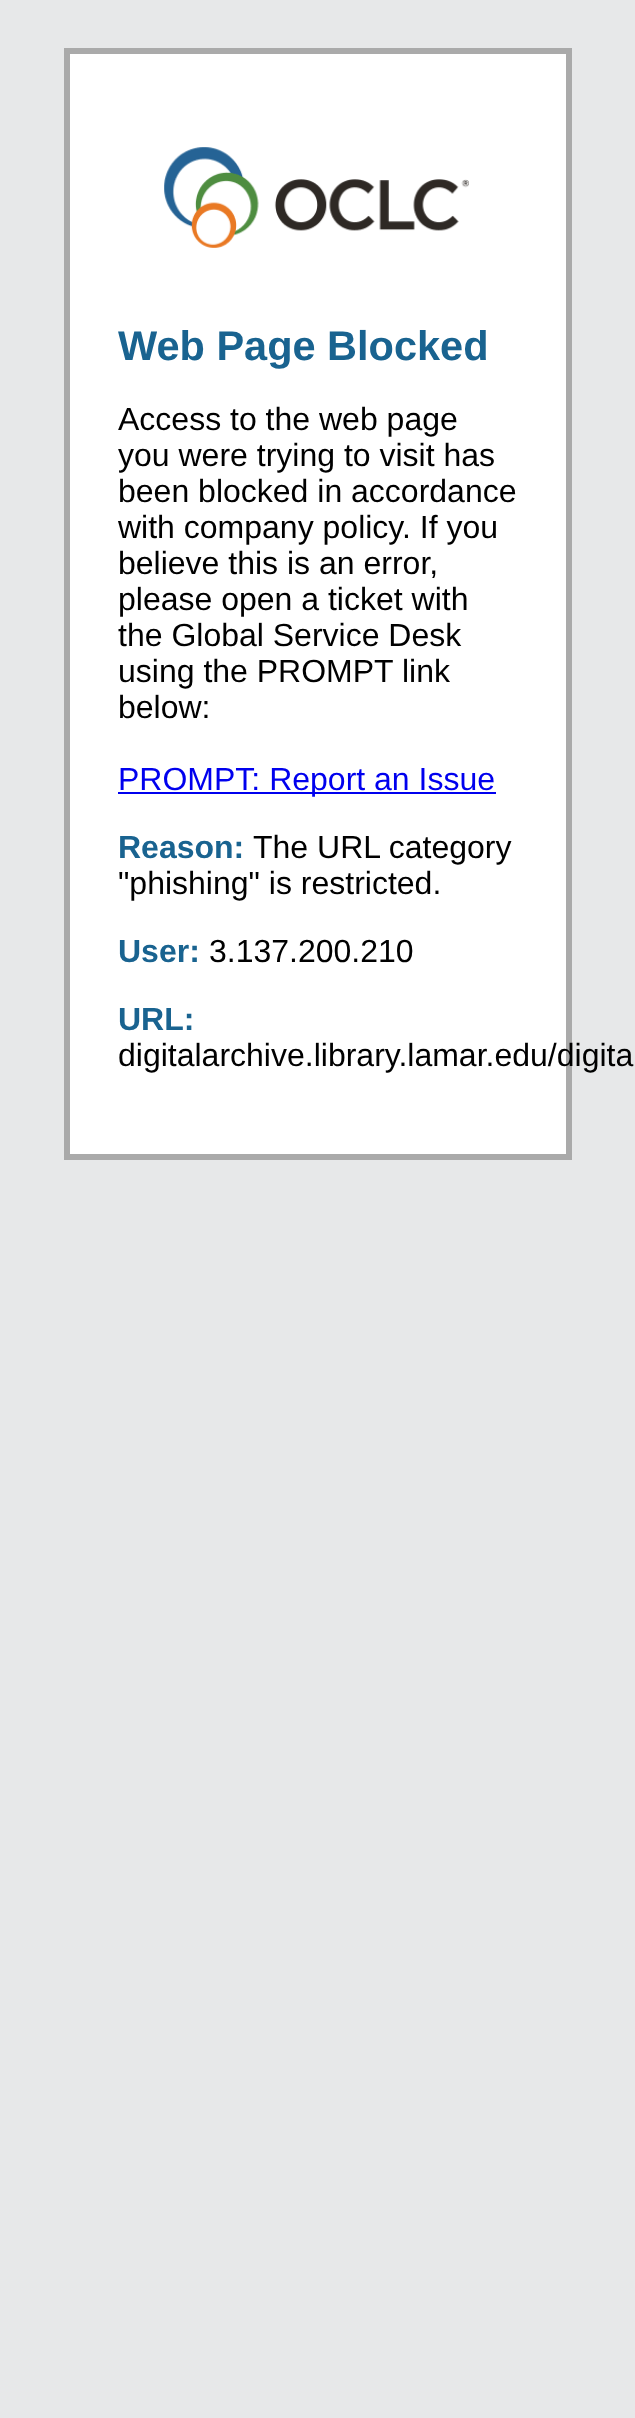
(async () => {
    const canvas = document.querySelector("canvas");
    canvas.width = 635;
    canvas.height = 2418;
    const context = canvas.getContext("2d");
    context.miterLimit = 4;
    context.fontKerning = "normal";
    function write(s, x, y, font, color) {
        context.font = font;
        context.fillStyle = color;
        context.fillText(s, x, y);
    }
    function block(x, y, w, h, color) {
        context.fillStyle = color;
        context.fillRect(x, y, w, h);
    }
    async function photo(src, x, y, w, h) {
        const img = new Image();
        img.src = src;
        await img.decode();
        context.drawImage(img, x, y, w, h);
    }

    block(0, 0, 635, 2418, "rgb(231, 232, 233)");
    context.fillStyle = "rgb(255, 255, 255)";
    context.beginPath();
    context.rect(67, 51, 502, 1106);
    context.fill();
    context.strokeStyle = "rgb(170, 170, 170)";
    context.lineWidth = 6;
    context.stroke();
    await photo("media/1.png", 164, 147, 305, 101);
    write("Web Page Blocked", 118, 360, "bold 41.5px Liberation Sans", "rgb(25, 99, 144)");
    write("Access to the web page", 118, 430, "32px Liberation Sans", "rgb(0, 0, 0)");
    write("you were trying to visit has", 118, 466, "32px Liberation Sans", "rgb(0, 0, 0)");
    write("been blocked in accordance", 118, 502, "32px Liberation Sans", "rgb(0, 0, 0)");
    write("with company policy. If you", 118, 538, "32px Liberation Sans", "rgb(0, 0, 0)");
    write("believe this is an error,", 118, 574, "32px Liberation Sans", "rgb(0, 0, 0)");
    write("please open a ticket with", 118, 610, "32px Liberation Sans", "rgb(0, 0, 0)");
    write("the Global Service Desk", 118, 646, "32px Liberation Sans", "rgb(0, 0, 0)");
    write("using the PROMPT link", 118, 682, "32px Liberation Sans", "rgb(0, 0, 0)");
    write("below:", 118, 718, "32px Liberation Sans", "rgb(0, 0, 0)");
    block(118, 792, 378, 2, "rgb(0, 0, 238)");
    write("PROMPT: Report an Issue", 118, 790, "32px Liberation Sans", "rgb(0, 0, 238)");
    write("Reason:", 118, 858, "bold 32px Liberation Sans", "rgb(25, 99, 144)");
    write("The URL category", 253, 858, "32px Liberation Sans", "rgb(0, 0, 0)");
    write("\"phishing\" is restricted.", 118, 894, "32px Liberation Sans", "rgb(0, 0, 0)");
    write("User:", 118, 962, "bold 32px Liberation Sans", "rgb(25, 99, 144)");
    write("3.137.200.210", 209, 962, "32px Liberation Sans", "rgb(0, 0, 0)");
    write("URL:", 118, 1030, "bold 32px Liberation Sans", "rgb(25, 99, 144)");
    write("digitalarchive.library.lamar.edu/digita", 118, 1066, "32px Liberation Sans", "rgb(0, 0, 0)");
})();
